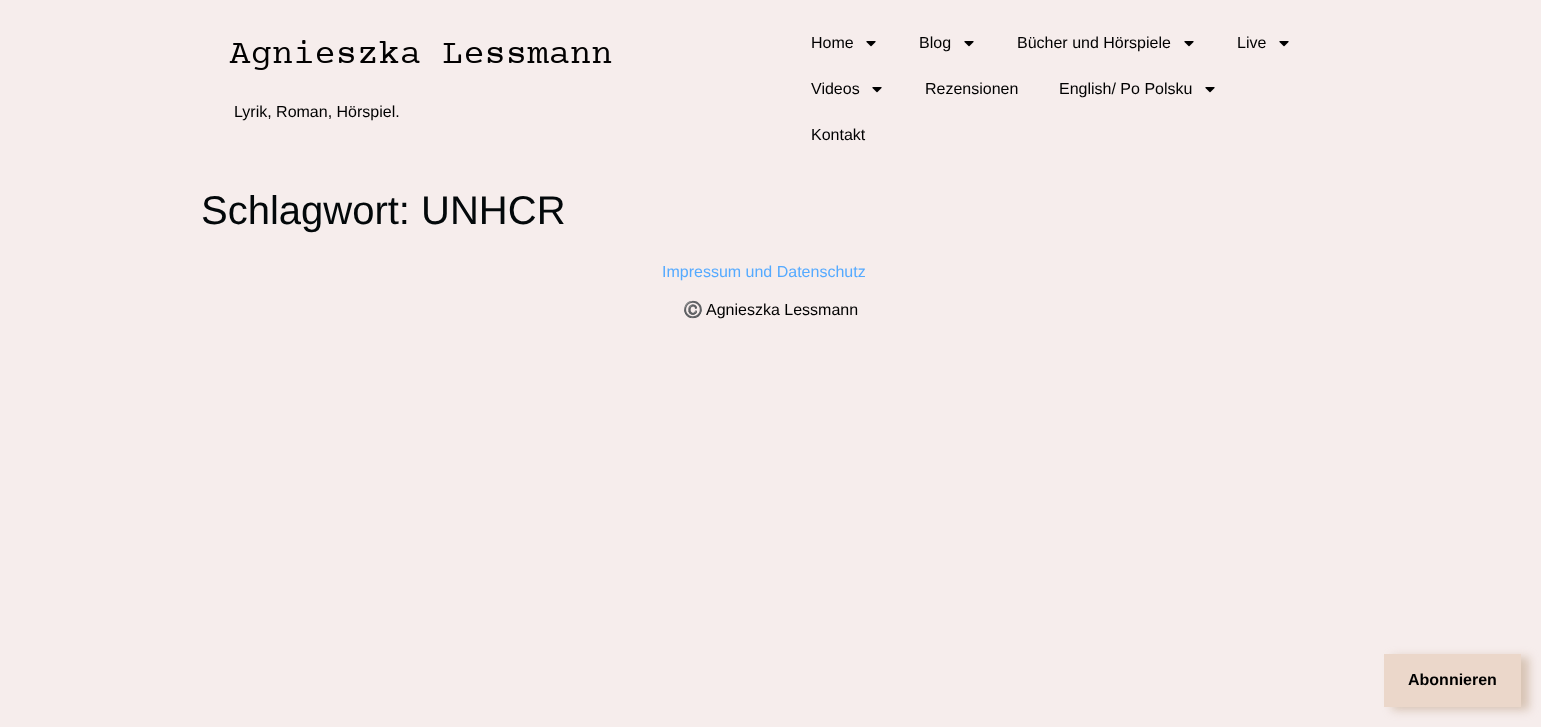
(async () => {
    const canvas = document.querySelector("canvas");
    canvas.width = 1541;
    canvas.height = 727;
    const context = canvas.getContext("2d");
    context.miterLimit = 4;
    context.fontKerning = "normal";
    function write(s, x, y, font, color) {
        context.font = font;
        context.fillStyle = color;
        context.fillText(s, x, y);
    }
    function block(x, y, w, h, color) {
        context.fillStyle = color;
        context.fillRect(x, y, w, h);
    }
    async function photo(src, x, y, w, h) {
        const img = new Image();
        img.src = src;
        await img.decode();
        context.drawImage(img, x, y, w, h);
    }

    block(0, 0, 1541, 727, "rgb(246, 237, 236)");
    await photo("media/1.png", 229, 40, 383, 30);
    write("Lyrik, Roman, Hörspiel.", 234, 117, "16px Liberation Sans", "rgb(0, 0, 0)");
    write("Home", 811, 48, "16px Liberation Sans", "rgb(0, 0, 0)");
    await photo("media/2.png", 866, 41, 10, 6);
    write("Blog", 919, 48, "16px Liberation Sans", "rgb(0, 0, 0)");
    await photo("media/2.png", 964, 41, 10, 6);
    write("Bücher und Hörspiele", 1017, 48, "16px Liberation Sans", "rgb(0, 0, 0)");
    await photo("media/2.png", 1184, 41, 10, 6);
    write("Live", 1237, 48, "16px Liberation Sans", "rgb(0, 0, 0)");
    await photo("media/2.png", 1279, 41, 10, 6);
    write("Videos", 811, 94, "16px Liberation Sans", "rgb(0, 0, 0)");
    await photo("media/2.png", 872, 87, 10, 6);
    write("Rezensionen", 925, 94, "16px Liberation Sans", "rgb(0, 0, 0)");
    write("English/ Po Polsku", 1059, 94, "16px Liberation Sans", "rgb(0, 0, 0)");
    await photo("media/2.png", 1205, 87, 10, 6);
    write("Kontakt", 811, 140, "16px Liberation Sans", "rgb(0, 0, 0)");
    write("Schlagwort: UNHCR", 201, 224, "40px Liberation Sans", "rgb(3, 8, 10)");
    write("Impressum und Datenschutz", 662, 277, "16px Liberation Sans", "rgb(85, 170, 255)");
    write("©️", 683, 315, "16px Noto Color Emoji", "rgb(0, 0, 0)");
    write("Agnieszka Lessmann", 706, 315, "16px Liberation Sans", "rgb(0, 0, 0)");
    context.fillStyle = "rgba(192, 163, 138, 0.57)";
    context.filter = "blur(5px)";
    context.beginPath();
    context.rect(1392, 657, 137, 53);
    context.fill();
    context.filter = "none";
    block(1384, 654, 137, 53, "rgb(235, 215, 202)");
    write("Abonnieren", 1408, 685, "bold 16px Liberation Sans", "rgb(0, 0, 0)");
})();
